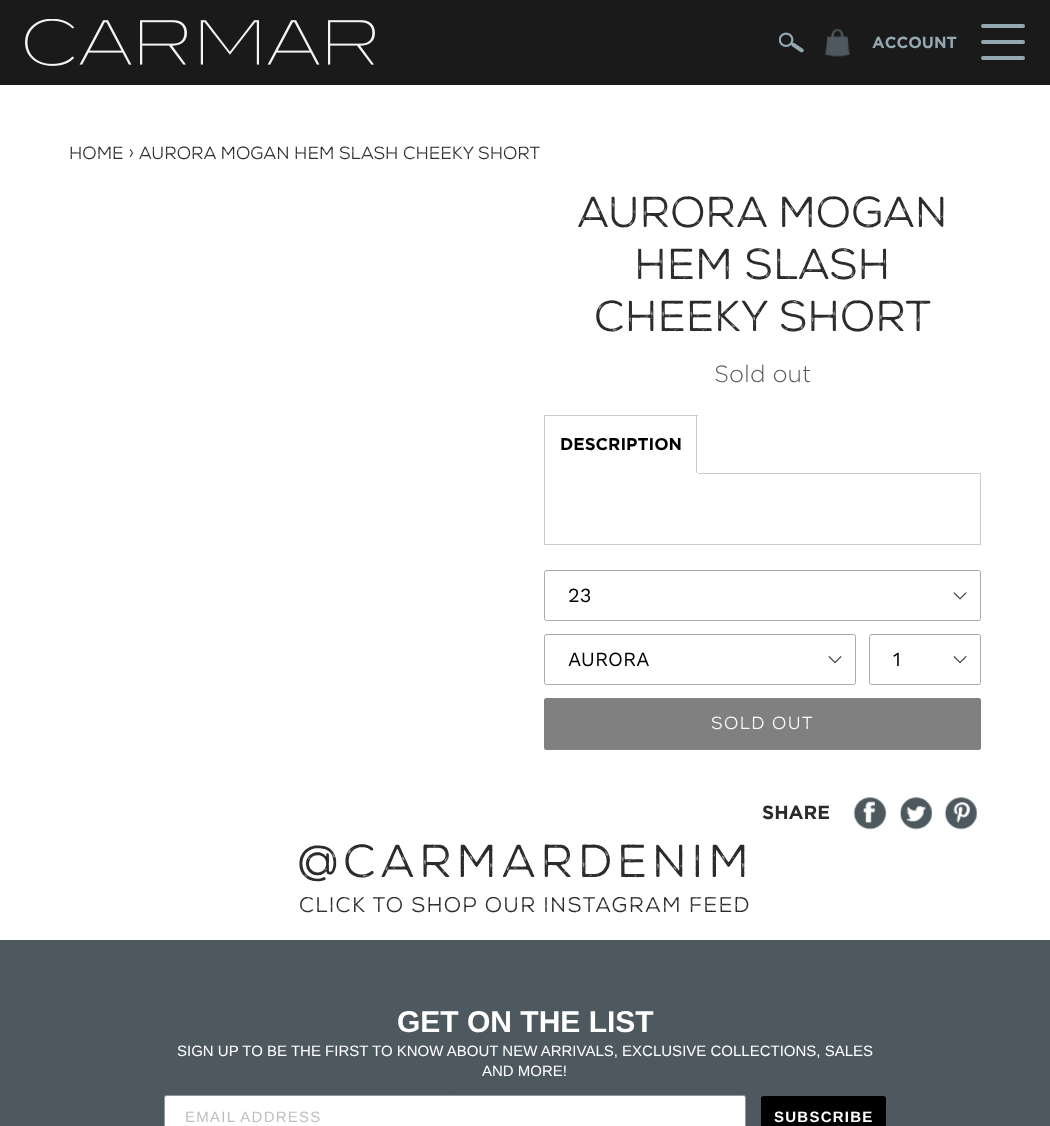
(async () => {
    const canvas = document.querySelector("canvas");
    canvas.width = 1050;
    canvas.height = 1126;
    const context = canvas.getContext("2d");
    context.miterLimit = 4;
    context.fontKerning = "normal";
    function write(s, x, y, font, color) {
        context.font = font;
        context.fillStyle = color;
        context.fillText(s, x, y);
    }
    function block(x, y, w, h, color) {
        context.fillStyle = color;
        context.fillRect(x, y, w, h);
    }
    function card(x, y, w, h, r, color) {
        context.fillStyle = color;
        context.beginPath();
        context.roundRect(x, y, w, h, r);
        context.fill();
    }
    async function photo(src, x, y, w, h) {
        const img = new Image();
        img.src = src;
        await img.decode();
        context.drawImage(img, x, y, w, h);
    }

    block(0, 0, 1050, 1126, "rgb(255, 255, 255)");
    block(0, 0, 1050, 85, "rgb(26, 26, 26)");
    await photo("media/1.png", 25, 19, 350, 47);
    await photo("media/2.png", 779, 32, 25, 21);
    await photo("media/3.png", 825, 28, 25, 29);
    write("ACCOUNT", 872, 48, "bold 16px Gotham", "rgb(147, 169, 178)");
    context.beginPath();
    context.moveTo(983, 26);
    context.lineTo(1023, 26);
    context.moveTo(983, 42);
    context.lineTo(1023, 42);
    context.moveTo(983, 58);
    context.lineTo(1023, 58);
    context.strokeStyle = "rgb(147, 169, 178)";
    context.lineWidth = 4;
    context.lineCap = "round";
    context.stroke();
    write("Home › AURORA MOGAN HEM SLASH CHEEKY SHORT", 69, 159, "17.6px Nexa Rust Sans", "rgb(43, 43, 43)");
    write("AURORA MOGAN", 577, 227, "43.25px Nexa Rust Sans", "rgb(43, 43, 43)");
    write("HEM SLASH", 634, 279, "43.25px Nexa Rust Sans", "rgb(43, 43, 43)");
    write("CHEEKY SHORT", 594, 331, "43.25px Nexa Rust Sans", "rgb(43, 43, 43)");
    write("Sold out", 714, 382, "300 23.5px Gotham", "rgb(88, 88, 90)");
    block(544, 415, 154, 1, "rgb(202, 203, 204)");
    context.strokeStyle = "rgb(202, 203, 204)";
    context.lineWidth = 1;
    context.strokeRect(544.5, 473.5, 436, 71);
    block(696, 415, 1, 59, "rgb(202, 203, 204)");
    block(544, 473, 154, 1, "rgb(255, 255, 255)");
    block(544, 415, 1, 59, "rgb(202, 203, 204)");
    write("DESCRIPTION", 560, 450, "bold 17px Gotham", "rgb(0, 0, 0)");
    await photo("media/4.png", 953, 592, 14, 8);
    context.beginPath();
    context.roundRect(544.5, 570.5, 436, 50, 2);
    context.strokeStyle = "rgb(169, 169, 169)";
    context.stroke();
    write("23", 568, 602, "20px Work Sans", "rgb(0, 0, 0)");
    await photo("media/5.png", 828, 656, 14, 8);
    context.beginPath();
    context.roundRect(544.5, 634.5, 311, 50, 2);
    context.stroke();
    write("AURORA", 568, 666, "20px Work Sans", "rgb(0, 0, 0)");
    await photo("media/5.png", 953, 656, 14, 8);
    context.beginPath();
    context.roundRect(869.5, 634.5, 111, 50, 2);
    context.stroke();
    write("1", 893, 666, "20px Work Sans", "rgb(0, 0, 0)");
    card(544, 698, 437, 52, 2.5, "rgb(128, 128, 128)");
    context.letterSpacing = "1.5px";
    write("SOLD OUT", 711, 729, "17.5px Nexa Rust Sans", "rgb(255, 255, 255)");
    context.letterSpacing = "0px";
    write("SHARE", 762, 819, "bold 19px Gotham", "rgb(43, 43, 43)");
    await photo("media/6.png", 853, 797, 34, 33);
    await photo("media/7.png", 899, 797, 34, 33);
    await photo("media/8.png", 944, 797, 33, 33);
    context.letterSpacing = "4.6px";
    write("@CARMARDENIM", 297, 877, "46.25px Nexa Rust Sans", "rgb(43, 43, 43)");
    context.letterSpacing = "1.25px";
    write("click to shop our instagram feed", 299, 912, "21.25px Nexa Rust Sans", "rgb(43, 43, 43)");
    block(0, 940, 1050, 186, "rgb(77, 89, 94)");
    context.letterSpacing = "0px";
    write("GET ON THE LIST", 397, 1032, "bold 30px Liberation Sans", "rgb(255, 255, 255)");
    write("SIGN UP TO BE THE FIRST TO KNOW ABOUT NEW ARRIVALS, EXCLUSIVE COLLECTIONS, SALES", 177, 1056, "15px Liberation Sans", "rgb(255, 255, 255)");
    write("AND MORE!", 482, 1076, "15px Liberation Sans", "rgb(255, 255, 255)");
    context.beginPath();
    context.roundRect(164.5, 1095.5, 581, 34, 2);
    context.fill();
    context.strokeStyle = "rgb(148, 149, 150)";
    context.stroke();
    context.letterSpacing = "1.25px";
    write("EMAIL ADDRESS", 185, 1122, "15px Liberation Sans", "rgb(191, 191, 192)");
    card(761, 1096, 125, 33, 2.5, "rgb(0, 0, 0)");
    write("SUBSCRIBE", 774, 1122, "bold 15px Liberation Sans", "rgb(255, 255, 255)");
})();
